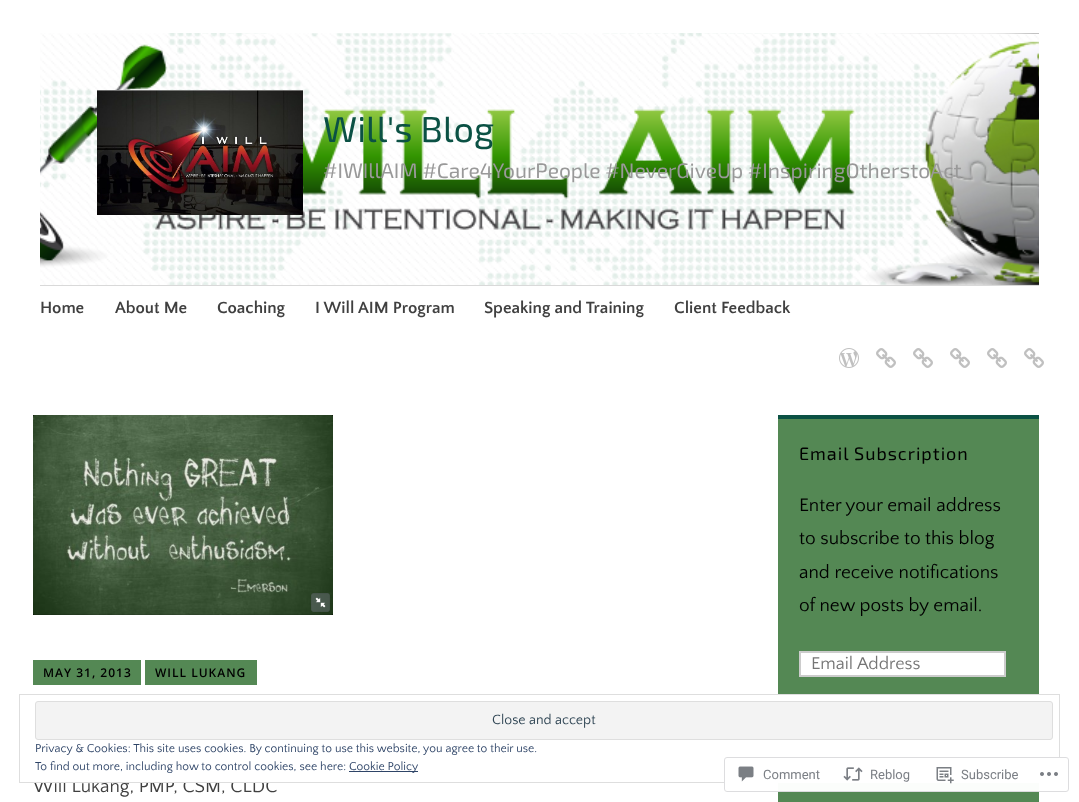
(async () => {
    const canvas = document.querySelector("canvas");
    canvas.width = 1079;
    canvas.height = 802;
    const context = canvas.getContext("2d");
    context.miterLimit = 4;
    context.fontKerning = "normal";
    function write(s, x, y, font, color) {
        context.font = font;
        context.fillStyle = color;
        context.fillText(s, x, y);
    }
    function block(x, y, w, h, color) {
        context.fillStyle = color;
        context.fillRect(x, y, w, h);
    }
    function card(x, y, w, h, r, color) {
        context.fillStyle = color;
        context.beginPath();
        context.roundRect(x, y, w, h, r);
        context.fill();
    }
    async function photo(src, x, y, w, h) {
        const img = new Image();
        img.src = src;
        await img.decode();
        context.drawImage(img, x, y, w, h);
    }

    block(0, 0, 1079, 802, "rgb(255, 255, 255)");
    await photo("media/1.png", 40, 33, 999, 252);
    await photo("media/2.png", 97, 90, 206, 125);
    write("Will's Blog", 323, 142, "36px 'Exo 2'", "rgb(11, 81, 68)");
    write("#IWIllAIM #Care4YourPeople #NeverGiveUp #InspiringOtherstoAct", 323, 178, "21px 'Exo 2'", "rgb(153, 153, 153)");
    block(40, 285, 999, 1, "rgb(217, 217, 217)");
    write("Home", 40, 313, "bold 17px Quattrocento Sans", "rgb(64, 64, 64)");
    write("About Me", 115, 313, "bold 17px Quattrocento Sans", "rgb(64, 64, 64)");
    write("Coaching", 217, 313, "bold 17px Quattrocento Sans", "rgb(64, 64, 64)");
    write("I Will AIM Program", 315, 313, "bold 17px Quattrocento Sans", "rgb(64, 64, 64)");
    write("Speaking and Training", 484, 313, "bold 17px Quattrocento Sans", "rgb(64, 64, 64)");
    write("Client Feedback", 674, 313, "bold 17px Quattrocento Sans", "rgb(64, 64, 64)");
    await photo("media/3.png", 839, 348, 20, 20);
    await photo("media/4.png", 876, 348, 20, 20);
    await photo("media/4.png", 913, 348, 20, 20);
    await photo("media/4.png", 950, 348, 20, 20);
    await photo("media/4.png", 987, 348, 20, 20);
    await photo("media/4.png", 1024, 348, 20, 20);
    block(778, 419, 261, 383, "rgb(84, 136, 84)");
    block(778, 415, 261, 4, "rgb(11, 81, 68)");
    context.letterSpacing = "1px";
    write("Email Subscription", 799, 460, "18px 'Exo 2'", "rgb(0, 0, 0)");
    context.letterSpacing = "0px";
    write("Enter your email address", 799, 511, "19px Quattrocento Sans", "rgb(0, 0, 0)");
    write("to subscribe to this blog", 799, 544, "19px Quattrocento Sans", "rgb(0, 0, 0)");
    write("and receive notifications", 799, 578, "19px Quattrocento Sans", "rgb(0, 0, 0)");
    write("of new posts by email.", 799, 611, "19px Quattrocento Sans", "rgb(0, 0, 0)");
    context.fillStyle = "rgb(255, 255, 255)";
    context.beginPath();
    context.rect(800, 652, 205, 24);
    context.fill();
    context.strokeStyle = "rgb(204, 204, 204)";
    context.lineWidth = 2;
    context.stroke();
    write("Email Address", 811, 669, "18px Quattrocento Sans", "rgb(117, 117, 117)");
    await photo("media/5.png", 33, 415, 300, 200);
    block(33, 660, 108, 25, "rgb(84, 136, 84)");
    context.letterSpacing = "1px";
    write("MAY 31, 2013", 43, 677, "600 12px Open Sans", "rgb(0, 0, 0)");
    block(145, 660, 112, 25, "rgb(84, 136, 84)");
    write("WILL LUKANG", 155, 677, "600 12px Open Sans", "rgb(0, 0, 0)");
    context.letterSpacing = "0px";
    write("Will Lukang, PMP, CSM, CLDC", 33, 792, "19px Quattrocento Sans", "rgb(64, 64, 64)");
    block(32, 695, 1007, 87, "rgb(255, 255, 255)");
    context.strokeStyle = "rgb(222, 222, 222)";
    context.lineWidth = 1;
    context.strokeRect(19.5, 694.5, 1040, 88);
    context.fillStyle = "rgb(243, 243, 243)";
    context.beginPath();
    context.roundRect(35.5, 701.5, 1017, 38, 2.5);
    context.fill();
    context.stroke();
    write("Close and accept", 492, 724, "14px Quattrocento Sans", "rgb(46, 68, 83)");
    write("Privacy & Cookies: This site uses cookies. By continuing to use this website, you agree to their use.", 35, 752, "12px Quattrocento Sans", "rgb(46, 68, 103)");
    write("To find out more, including how to control cookies, see here:", 35, 770, "12px Quattrocento Sans", "rgb(46, 68, 103)");
    block(349, 771, 69, 1, "rgb(46, 68, 103)");
    write("Cookie Policy", 349, 770, "12px Quattrocento Sans", "rgb(46, 68, 103)");
    card(724, 757, 345, 35, 3, "rgba(255, 255, 255, 0.98)");
    context.beginPath();
    context.roundRect(724.5, 757.5, 344, 34, 2.5);
    context.strokeStyle = "rgba(220, 220, 222, 0.98)";
    context.stroke();
    await photo("media/6.png", 738, 766, 16, 16);
    write("Comment", 763, 779, "13px Roboto", "rgb(123, 127, 133)");
    await photo("media/7.png", 843, 767, 20, 14);
    write("Reblog", 870, 779, "13px Roboto", "rgb(123, 127, 133)");
    await photo("media/8.png", 936, 767, 18, 17);
    write("Subscribe", 961, 779, "13px Roboto", "rgb(123, 127, 133)");
    await photo("media/9.png", 1040, 772, 18, 4);
})();
